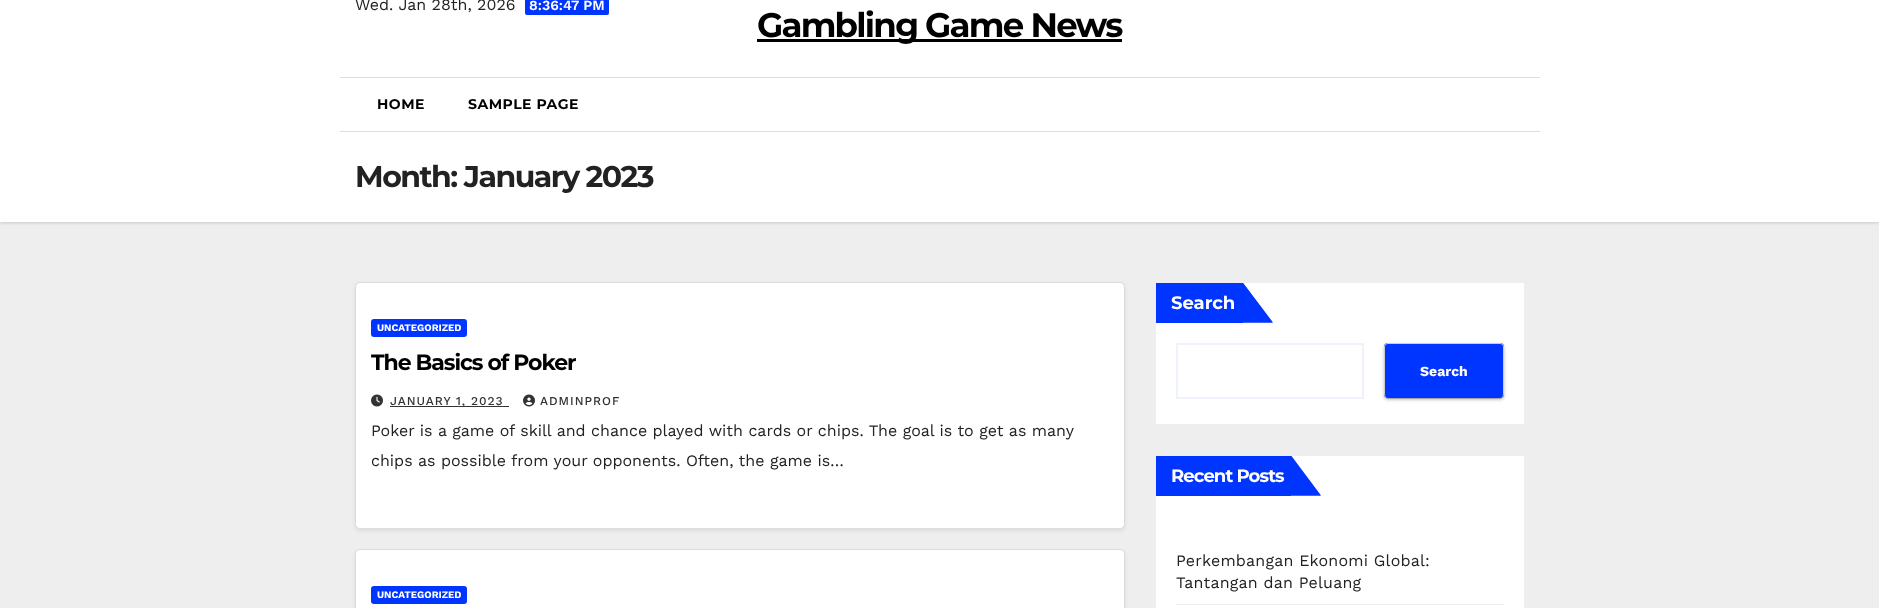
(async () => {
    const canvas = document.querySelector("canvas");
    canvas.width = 1879;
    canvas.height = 608;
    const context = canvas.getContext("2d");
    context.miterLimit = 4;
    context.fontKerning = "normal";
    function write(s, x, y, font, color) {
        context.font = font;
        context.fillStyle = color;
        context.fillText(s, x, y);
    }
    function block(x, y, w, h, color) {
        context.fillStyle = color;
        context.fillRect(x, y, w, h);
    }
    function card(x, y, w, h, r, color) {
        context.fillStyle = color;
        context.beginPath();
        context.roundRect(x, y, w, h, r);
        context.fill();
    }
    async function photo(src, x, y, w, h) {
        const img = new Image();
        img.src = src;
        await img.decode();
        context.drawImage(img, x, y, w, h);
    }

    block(0, 0, 1879, 608, "rgb(238, 238, 238)");
    block(0, 0, 1879, 77, "rgb(255, 255, 255)");
    write("Wed. Jan 28th, 2026", 355, 10, "16px Work Sans", "rgb(34, 34, 34)");
    card(525, -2, 84, 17, 2, "rgb(0, 53, 255)");
    write("8:36:47 PM", 529, 10, "600 14px Work Sans", "rgb(255, 255, 255)");
    block(757, 39, 365, 3, "rgb(0, 0, 0)");
    context.letterSpacing = "-1.75px";
    write("Gambling Game News", 757, 37, "bold 34px Montserrat", "rgb(0, 0, 0)");
    context.fillStyle = "rgba(0, 0, 0, 0.15)";
    context.filter = "blur(1.5px)";
    context.beginPath();
    context.rect(0, 133, 1879, 90);
    context.fill();
    context.filter = "none";
    block(0, 77, 1879, 145, "rgb(255, 255, 255)");
    block(340, 77, 1200, 1, "rgb(221, 221, 221)");
    block(340, 131, 1200, 1, "rgb(221, 221, 221)");
    context.letterSpacing = "0.5px";
    write("HOME", 377, 109, "bold 14px Montserrat", "rgb(0, 0, 0)");
    write("SAMPLE PAGE", 468, 109, "bold 14px Montserrat", "rgb(0, 0, 0)");
    context.letterSpacing = "-1.5px";
    write("Month: January 2023", 355, 187, "bold 30px Montserrat", "rgb(34, 34, 34)");
    context.fillStyle = "rgba(0, 0, 0, 0.08)";
    context.filter = "blur(2px)";
    context.beginPath();
    context.roundRect(355, 284, 770, 247, 5);
    context.fill();
    context.filter = "none";
    context.fillStyle = "rgb(255, 255, 255)";
    context.beginPath();
    context.roundRect(355.5, 282.5, 769, 246, 4.5);
    context.fill();
    context.strokeStyle = "rgb(221, 220, 220)";
    context.stroke();
    card(371, 319, 96, 18, 3, "rgb(0, 53, 255)");
    context.letterSpacing = "0px";
    write("UNCATEGORIZED", 377, 331, "bold 10px Work Sans", "rgb(255, 255, 255)");
    context.save();
    context.beginPath();
    context.rect(371, 347, 738, 32);
    context.clip();
    context.letterSpacing = "-1.1px";
    write("The Basics of Poker", 371, 370, "bold 22px Montserrat", "rgb(0, 0, 0)");
    context.restore();
    await photo("media/1.png", 371, 394, 12, 13);
    block(390, 406, 119, 1, "rgb(51, 51, 51)");
    context.letterSpacing = "1px";
    write("JANUARY 1, 2023", 390, 405, "500 12px Work Sans", "rgb(51, 51, 51)");
    await photo("media/2.png", 523, 394, 12, 13);
    write("ADMINPROF", 540, 405, "500 12px Work Sans", "rgb(51, 51, 51)");
    context.letterSpacing = "0px";
    write("Poker is a game of skill and chance played with cards or chips. The goal is to get as many", 371, 436, "16px Work Sans", "rgb(34, 34, 34)");
    write("chips as possible from your opponents. Often, the game is…", 371, 466, "16px Work Sans", "rgb(34, 34, 34)");
    context.fillStyle = "rgba(0, 0, 0, 0.08)";
    context.filter = "blur(2px)";
    context.beginPath();
    context.roundRect(355, 551, 770, 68, 5);
    context.fill();
    context.filter = "none";
    context.fillStyle = "rgb(255, 255, 255)";
    context.beginPath();
    context.roundRect(355.5, 549.5, 769, 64, 4.5);
    context.fill();
    context.stroke();
    card(371, 586, 96, 18, 3, "rgb(0, 53, 255)");
    write("UNCATEGORIZED", 377, 598, "bold 10px Work Sans", "rgb(255, 255, 255)");
    block(1156, 283, 368, 141, "rgb(255, 255, 255)");
    block(1156, 283, 87, 40, "rgb(0, 53, 255)");
    write("Search", 1171, 309, "bold 18px Montserrat", "rgb(255, 255, 255)");
    context.fillStyle = "rgb(0, 53, 255)";
    context.beginPath();
    context.moveTo(1243, 283);
    context.lineTo(1243, 322.5);
    context.lineTo(1273, 322.5);
    context.closePath();
    context.fill();
    context.beginPath();
    context.moveTo(1272.5, 322.5);
    context.lineTo(1243, 283);
    context.lineTo(1243, 322.5);
    context.closePath();
    context.fill();
    context.strokeStyle = "rgb(238, 243, 251)";
    context.lineWidth = 2;
    context.strokeRect(1177, 344, 186, 54);
    context.fillStyle = "rgba(0, 0, 0, 0.12)";
    context.filter = "blur(2.5px)";
    context.beginPath();
    context.roundRect(1384, 344, 120, 55, 4);
    context.fill();
    context.filter = "none";
    context.fillStyle = "rgba(0, 0, 0, 0.2)";
    context.filter = "blur(0.5px)";
    context.beginPath();
    context.roundRect(1386, 348, 116, 51, 2);
    context.fill();
    context.filter = "none";
    context.fillStyle = "rgba(0, 0, 0, 0.14)";
    context.filter = "blur(1px)";
    context.beginPath();
    context.roundRect(1384, 345, 120, 55, 4);
    context.fill();
    context.filter = "none";
    card(1384, 343, 120, 55, 4, "rgb(0, 53, 255)");
    context.fillStyle = "rgb(204, 204, 204)";
    context.beginPath();
    context.moveTo(1388, 343);
    context.lineTo(1500, 343);
    context.bezierCurveTo(1502, 343, 1504, 345, 1504, 347);
    context.lineTo(1504, 394);
    context.bezierCurveTo(1504, 396, 1502, 398, 1500, 398);
    context.lineTo(1388, 398);
    context.bezierCurveTo(1386, 398, 1384, 396, 1384, 394);
    context.lineTo(1384, 347);
    context.bezierCurveTo(1384, 345, 1386, 343, 1388, 343);
    context.closePath();
    context.moveTo(1388, 344);
    context.lineTo(1500, 344);
    context.bezierCurveTo(1502, 344, 1503, 345, 1503, 347);
    context.lineTo(1503, 394);
    context.bezierCurveTo(1503, 396, 1502, 398, 1500, 398);
    context.lineTo(1388, 398);
    context.bezierCurveTo(1386, 398, 1385, 396, 1385, 394);
    context.lineTo(1385, 347);
    context.bezierCurveTo(1385, 345, 1386, 344, 1388, 344);
    context.closePath();
    context.fill("evenodd");
    write("Search", 1420, 376, "bold 14px Work Sans", "rgb(255, 255, 255)");
    block(1156, 456, 368, 152, "rgb(255, 255, 255)");
    block(1156, 456, 135, 40, "rgb(0, 53, 255)");
    context.letterSpacing = "-0.9px";
    write("Recent Posts", 1171, 482, "bold 18px Montserrat", "rgb(255, 255, 255)");
    context.fillStyle = "rgb(0, 53, 255)";
    context.beginPath();
    context.moveTo(1291.5, 456);
    context.lineTo(1291, 456);
    context.lineTo(1291, 495.5);
    context.lineTo(1321, 495.5);
    context.closePath();
    context.fill();
    context.beginPath();
    context.moveTo(1320.5, 495.5);
    context.lineTo(1291, 456.5);
    context.lineTo(1291, 495.5);
    context.closePath();
    context.fill();
    block(1176, 604, 328, 1, "rgb(238, 238, 238)");
    context.letterSpacing = "0.2px";
    write("Perkembangan Ekonomi Global:", 1176, 566, "16px Work Sans", "rgb(34, 34, 34)");
    write("Tantangan dan Peluang", 1176, 588, "16px Work Sans", "rgb(34, 34, 34)");
})();
